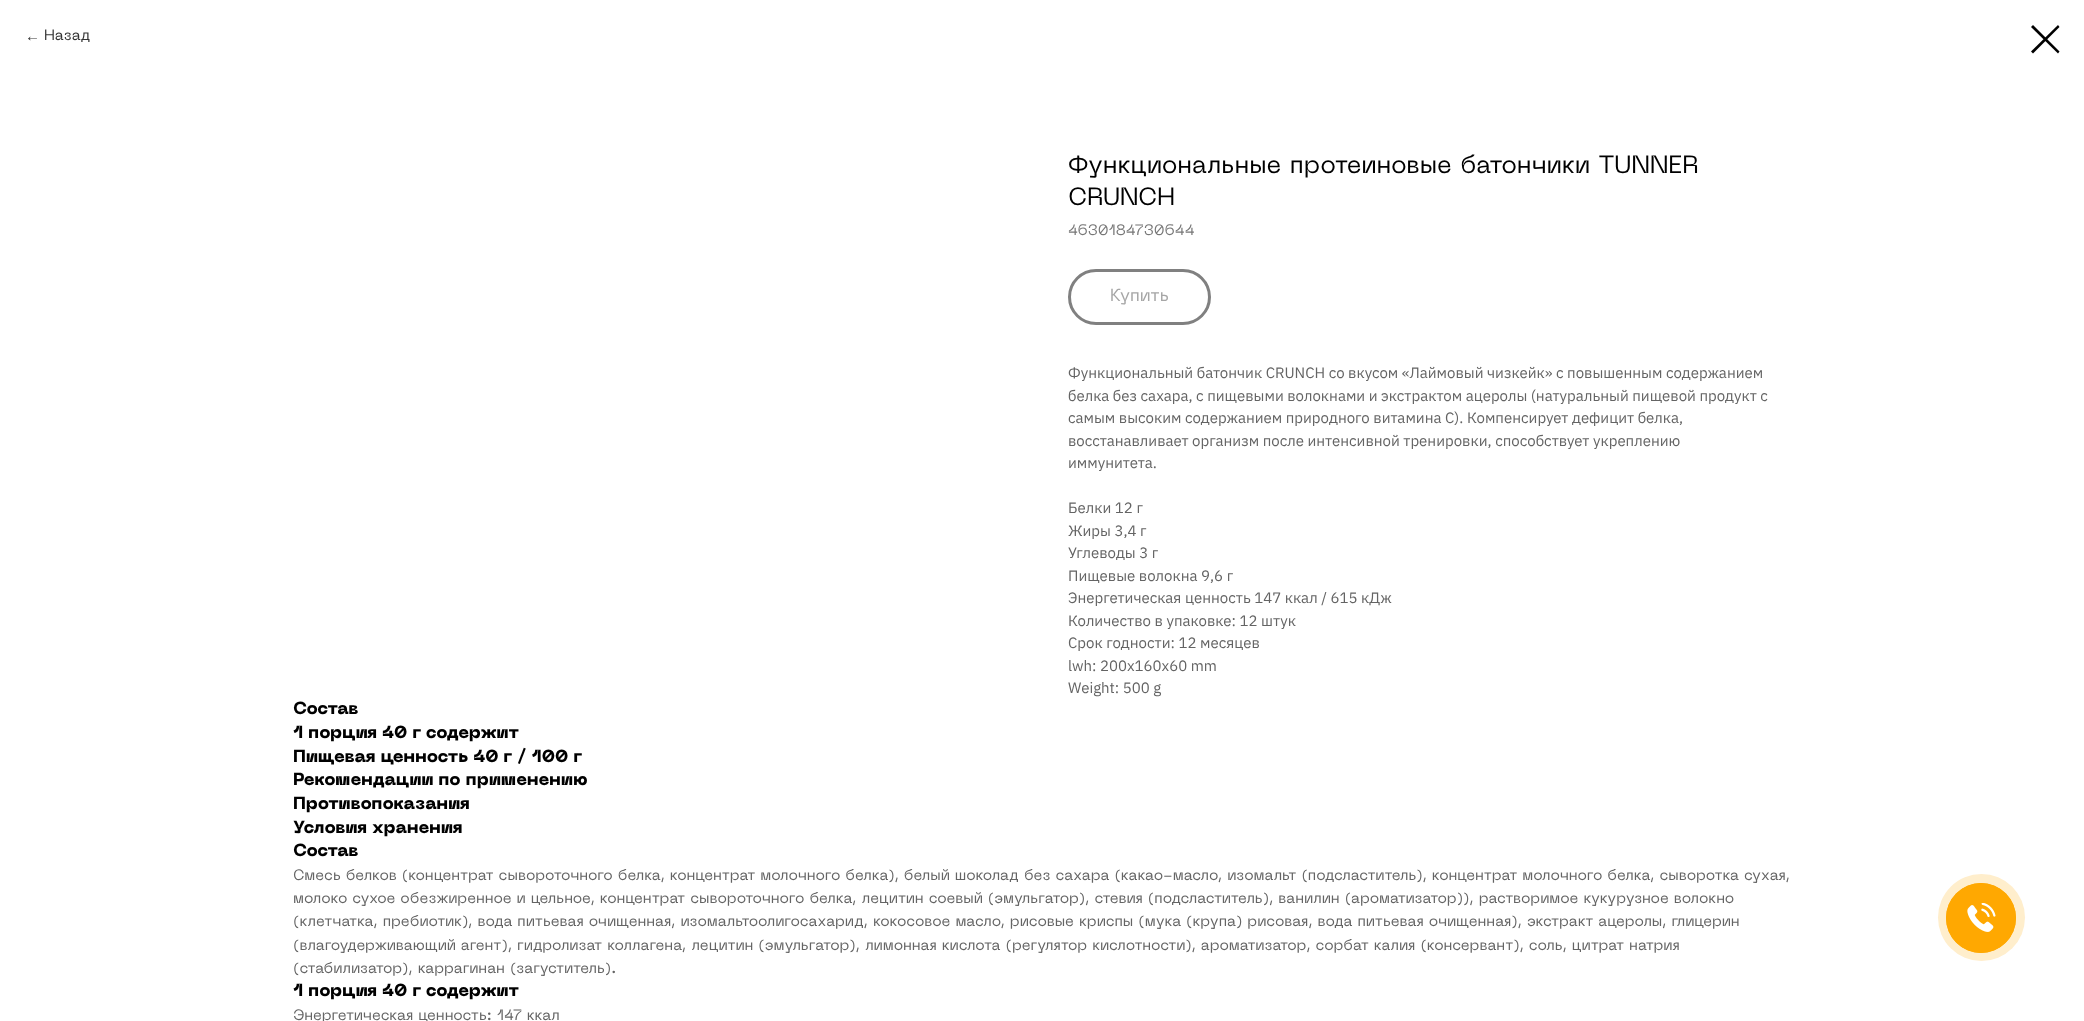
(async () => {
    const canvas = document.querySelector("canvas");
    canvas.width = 2084;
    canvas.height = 1021;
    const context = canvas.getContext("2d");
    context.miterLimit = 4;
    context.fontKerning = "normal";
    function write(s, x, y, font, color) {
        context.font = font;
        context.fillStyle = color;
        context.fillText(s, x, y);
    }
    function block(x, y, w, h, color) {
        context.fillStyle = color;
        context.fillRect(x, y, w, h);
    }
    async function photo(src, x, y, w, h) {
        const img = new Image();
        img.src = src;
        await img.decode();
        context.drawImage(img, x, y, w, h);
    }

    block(0, 0, 2084, 1021, "rgb(255, 255, 255)");
    write("←", 25, 41, "15px Liberation Sans", "rgb(51, 51, 51)");
    write("Назад", 44, 40, "15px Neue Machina", "rgb(51, 51, 51)");
    context.fillStyle = "rgb(0, 0, 0)";
    context.beginPath();
    context.moveTo(2031, 27);
    context.lineTo(2033, 25);
    context.lineTo(2059.5, 51.5);
    context.lineTo(2058, 53.5);
    context.closePath();
    context.fill("evenodd");
    context.beginPath();
    context.moveTo(2058, 25);
    context.lineTo(2059.5, 27);
    context.lineTo(2033, 53.5);
    context.lineTo(2031, 51.5);
    context.closePath();
    context.fill("evenodd");
    write("Функциональные протеиновые батончики TUNNER", 1068, 173, "25px Neue Machina", "rgb(0, 0, 0)");
    write("CRUNCH", 1068, 205, "25px Neue Machina", "rgb(0, 0, 0)");
    write("4630184730644", 1068, 235, "15px Neue Machina", "rgb(119, 119, 119)");
    context.beginPath();
    context.roundRect(1069.5, 270.5, 140, 53, 26.5);
    context.strokeStyle = "rgb(128, 128, 128)";
    context.lineWidth = 3;
    context.stroke();
    write("Купить", 1110, 301, "17.5px Neue Machina", "rgb(166, 166, 166)");
    write("Функциональный батончик CRUNCH со вкусом «Лаймовый чизкейк» с повышенным содержанием", 1068, 378, "15px IBM Plex Sans", "rgb(100, 100, 100)");
    write("белка без сахара, с пищевыми волокнами и экстрактом ацеролы (натуральный пищевой продукт с", 1068, 401, "15px IBM Plex Sans", "rgb(100, 100, 100)");
    write("самым высоким содержанием природного витамина С). Компенсирует дефицит белка,", 1068, 423, "15px IBM Plex Sans", "rgb(100, 100, 100)");
    write("восстанавливает организм после интенсивной тренировки, способствует укреплению", 1068, 446, "15px IBM Plex Sans", "rgb(100, 100, 100)");
    write("иммунитета.", 1068, 468, "15px IBM Plex Sans", "rgb(100, 100, 100)");
    write("Белки 12 г", 1068, 513, "15px IBM Plex Sans", "rgb(100, 100, 100)");
    write("Жиры 3,4 г", 1068, 536, "15px IBM Plex Sans", "rgb(100, 100, 100)");
    write("Углеводы 3 г", 1068, 558, "15px IBM Plex Sans", "rgb(100, 100, 100)");
    write("Пищевые волокна 9,6 г", 1068, 581, "15px IBM Plex Sans", "rgb(100, 100, 100)");
    write("Энергетическая ценность 147 ккал / 615 кДж", 1068, 603, "15px IBM Plex Sans", "rgb(100, 100, 100)");
    write("Количество в упаковке: 12 штук", 1068, 626, "15px IBM Plex Sans", "rgb(100, 100, 100)");
    write("Срок годности: 12 месяцев", 1068, 648, "15px IBM Plex Sans", "rgb(100, 100, 100)");
    write("lwh: 200x160x60 mm", 1068, 671, "15px IBM Plex Sans", "rgb(100, 100, 100)");
    write("Weight: 500 g", 1068, 693, "15px IBM Plex Sans", "rgb(100, 100, 100)");
    write("Состав", 293, 714, "800 17.5px Neue Machina", "rgb(0, 0, 0)");
    write("1 порция 40 г содержит", 293, 738, "800 17.5px Neue Machina", "rgb(0, 0, 0)");
    write("Пищевая ценность 40 г / 100 г", 293, 762, "800 17.5px Neue Machina", "rgb(0, 0, 0)");
    write("Рекомендации по применению", 293, 785, "800 17.5px Neue Machina", "rgb(0, 0, 0)");
    write("Противопоказания", 293, 809, "800 17.5px Neue Machina", "rgb(0, 0, 0)");
    write("Условия хранения", 293, 833, "800 17.5px Neue Machina", "rgb(0, 0, 0)");
    write("Состав", 293, 856, "800 17.5px Neue Machina", "rgb(0, 0, 0)");
    write("Смесь белков (концентрат сывороточного белка, концентрат молочного белка), белый шоколад без сахара (какао-масло, изомальт (подсластитель), концентрат молочного белка, сыворотка сухая,", 293, 880, "15px Neue Machina", "rgb(100, 100, 100)");
    write("молоко сухое обезжиренное и цельное, концентрат сывороточного белка, лецитин соевый (эмульгатор), стевия (подсластитель), ванилин (ароматизатор)), растворимое кукурузное волокно", 293, 903, "15px Neue Machina", "rgb(100, 100, 100)");
    write("(клетчатка, пребиотик), вода питьевая очищенная, изомальтоолигосахарид, кокосовое масло, рисовые криспы (мука (крупа) рисовая, вода питьевая очищенная), экстракт ацеролы, глицерин", 293, 926, "15px Neue Machina", "rgb(100, 100, 100)");
    write("(влагоудерживающий агент), гидролизат коллагена, лецитин (эмульгатор), лимонная кислота (регулятор кислотности), ароматизатор, сорбат калия (консервант), соль, цитрат натрия", 293, 950, "15px Neue Machina", "rgb(100, 100, 100)");
    write("(стабилизатор), каррагинан (загуститель).", 293, 973, "15px Neue Machina", "rgb(100, 100, 100)");
    write("1 порция 40 г содержит", 293, 996, "800 17.5px Neue Machina", "rgb(0, 0, 0)");
    write("Энергетическая ценность: 147 ккал", 293, 1020, "15px Neue Machina", "rgb(100, 100, 100)");
    context.fillStyle = "rgb(255, 238, 204)";
    context.beginPath();
    context.arc(1981.5, 917.5, 43.5, 0, Math.PI * 2);
    context.fill();
    context.beginPath();
    context.arc(1981, 918, 34.5, 0, Math.PI * 2);
    context.strokeStyle = "rgb(255, 168, 1)";
    context.lineWidth = 1;
    context.stroke();
    context.fillStyle = "rgb(255, 168, 1)";
    context.beginPath();
    context.arc(1981, 918, 35, 0, Math.PI * 2);
    context.fill();
    await photo("media/1.png", 1967, 903, 29, 29);
})();
